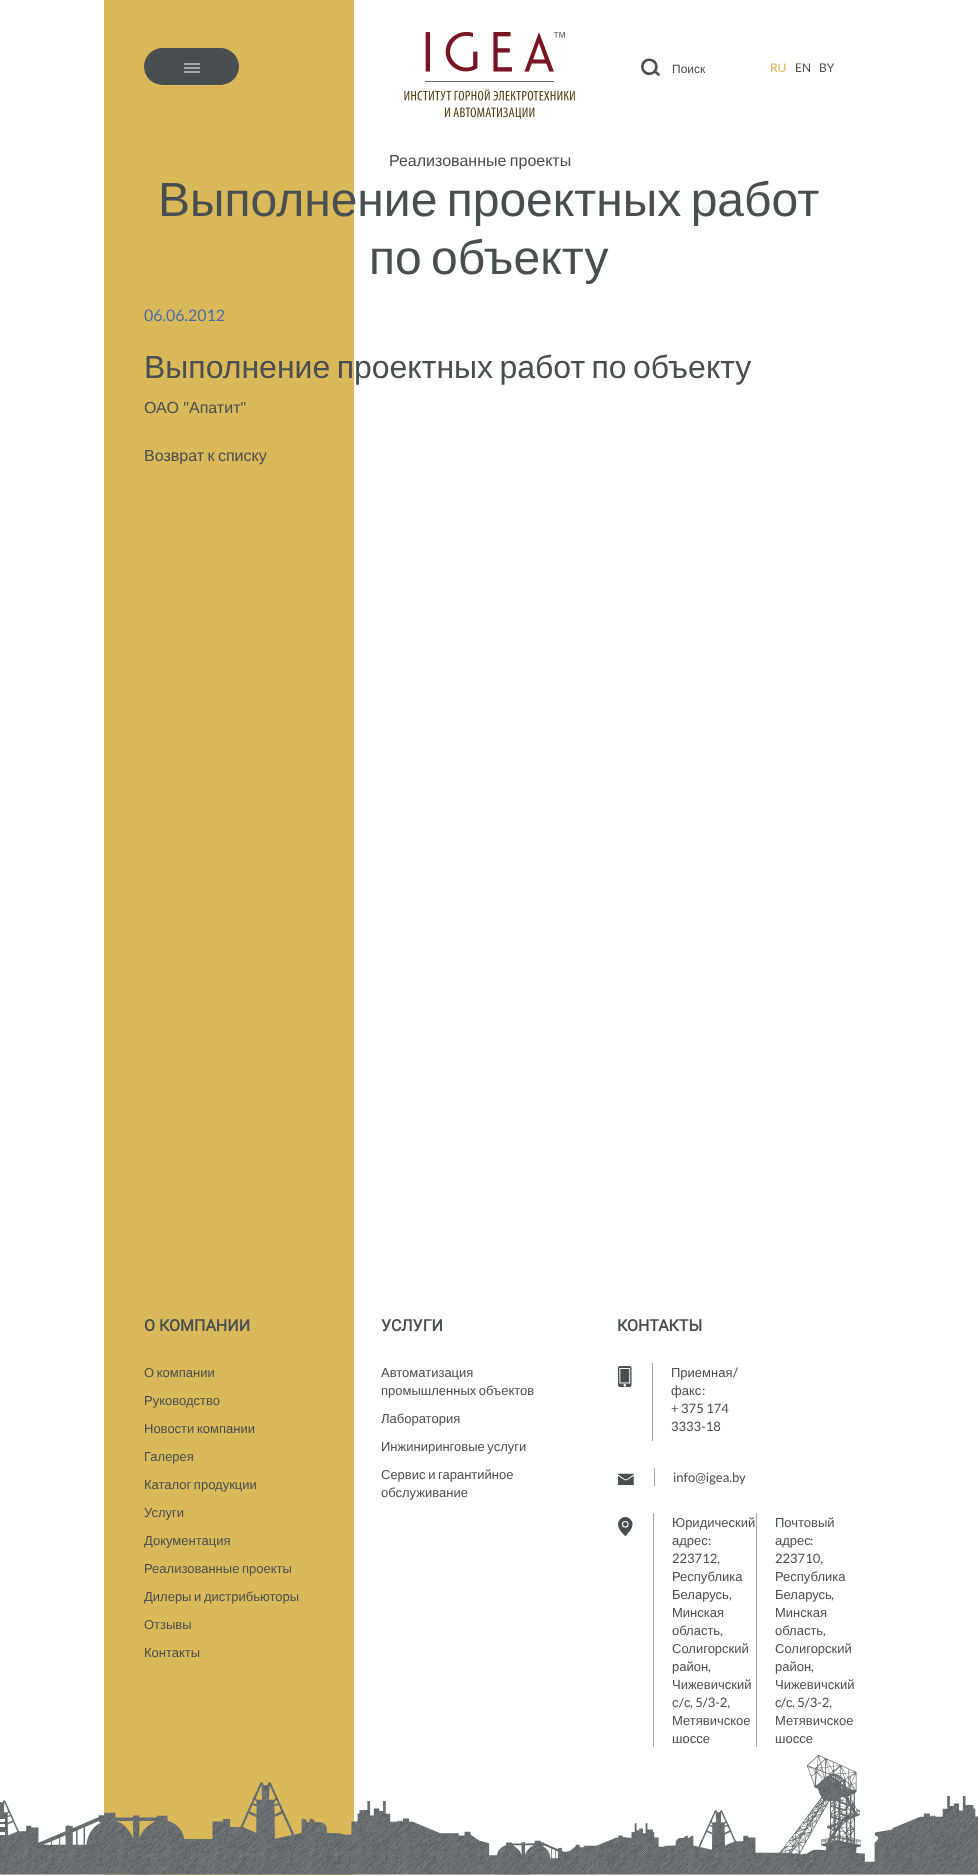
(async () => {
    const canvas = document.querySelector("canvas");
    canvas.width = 978;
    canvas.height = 1875;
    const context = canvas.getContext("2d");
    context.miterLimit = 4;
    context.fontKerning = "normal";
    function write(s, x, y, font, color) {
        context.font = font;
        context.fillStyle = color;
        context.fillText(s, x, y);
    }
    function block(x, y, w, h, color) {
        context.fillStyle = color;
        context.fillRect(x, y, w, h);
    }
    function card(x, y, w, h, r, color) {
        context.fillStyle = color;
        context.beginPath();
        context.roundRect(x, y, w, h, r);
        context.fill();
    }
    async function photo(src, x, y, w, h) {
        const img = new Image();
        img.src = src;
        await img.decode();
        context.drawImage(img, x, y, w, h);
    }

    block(0, 0, 978, 1875, "rgb(255, 255, 255)");
    block(104, 0, 250, 1875, "rgb(218, 185, 90)");
    card(144, 48, 95, 37, 18.5, "rgb(73, 78, 80)");
    await photo("media/1.png", 184, 63, 16, 10);
    await photo("media/2.png", 404, 31, 171, 88);
    await photo("media/3.png", 641, 58, 19, 18);
    write("Поиск", 672, 73, "12px Liberation Sans", "rgb(73, 78, 80)");
    write("RU", 770, 72, "12px Lato", "rgb(218, 185, 90)");
    write("EN", 795, 72, "12px Lato", "rgb(73, 78, 80)");
    write("BY", 819, 72, "12px Lato", "rgb(73, 78, 80)");
    context.wordSpacing = "-1px";
    write("Реализованные проекты", 389, 166, "16px Liberation Sans", "rgb(73, 78, 80)");
    context.wordSpacing = "-4px";
    write("Выполнение проектных работ", 158, 216, "48px Liberation Sans", "rgb(73, 78, 80)");
    write("по объекту", 369, 274, "48px Liberation Sans", "rgb(73, 78, 80)");
    context.wordSpacing = "0px";
    write("06.06.2012", 144, 321, "16px Lato", "rgb(72, 109, 170)");
    context.wordSpacing = "-2.5px";
    write("Выполнение проектных работ по объекту", 144, 378, "32px Liberation Sans", "rgb(73, 78, 80)");
    context.wordSpacing = "0px";
    write("ОАО \"Апатит\"", 144, 413, "16px Liberation Sans", "rgb(73, 78, 80)");
    context.wordSpacing = "-1px";
    write("Возврат к списку", 144, 461, "16px Liberation Sans", "rgb(73, 78, 80)");
    context.wordSpacing = "0px";
    write("О КОМПАНИИ", 144, 1331, "bold 16px Roboto", "rgb(73, 78, 80)");
    context.wordSpacing = "-1px";
    write("О компании", 144, 1377, "13px Liberation Sans", "rgb(73, 78, 80)");
    context.wordSpacing = "0px";
    write("Руководство", 144, 1405, "13px Liberation Sans", "rgb(73, 78, 80)");
    context.wordSpacing = "-1px";
    write("Новости компании", 144, 1433, "13px Liberation Sans", "rgb(73, 78, 80)");
    context.wordSpacing = "0px";
    write("Галерея", 144, 1461, "13px Liberation Sans", "rgb(73, 78, 80)");
    context.wordSpacing = "-1px";
    write("Каталог продукции", 144, 1489, "13px Liberation Sans", "rgb(73, 78, 80)");
    context.wordSpacing = "0px";
    write("Услуги", 144, 1517, "13px Liberation Sans", "rgb(73, 78, 80)");
    write("Документация", 144, 1545, "13px Liberation Sans", "rgb(73, 78, 80)");
    context.wordSpacing = "-1px";
    write("Реализованные проекты", 144, 1573, "13px Liberation Sans", "rgb(73, 78, 80)");
    write("Дилеры и дистрибьюторы", 144, 1601, "13px Liberation Sans", "rgb(73, 78, 80)");
    context.wordSpacing = "0px";
    write("Отзывы", 144, 1629, "13px Liberation Sans", "rgb(73, 78, 80)");
    write("Контакты", 144, 1657, "13px Liberation Sans", "rgb(73, 78, 80)");
    write("УСЛУГИ", 381, 1331, "bold 16px Roboto", "rgb(73, 78, 80)");
    write("Автоматизация", 381, 1377, "13px Liberation Sans", "rgb(73, 78, 80)");
    context.wordSpacing = "-1px";
    write("промышленных объектов", 381, 1395, "13px Liberation Sans", "rgb(73, 78, 80)");
    context.wordSpacing = "0px";
    write("Лаборатория", 381, 1423, "13px Liberation Sans", "rgb(73, 78, 80)");
    context.wordSpacing = "-1px";
    write("Инжиниринговые услуги", 381, 1451, "13px Liberation Sans", "rgb(73, 78, 80)");
    write("Сервис и гарантийное", 381, 1479, "13px Liberation Sans", "rgb(73, 78, 80)");
    context.wordSpacing = "0px";
    write("обслуживание", 381, 1497, "13px Liberation Sans", "rgb(73, 78, 80)");
    write("КОНТАКТЫ", 617, 1331, "bold 16px Roboto", "rgb(73, 78, 80)");
    await photo("media/4.png", 618, 1366, 14, 21);
    block(652, 1363, 1, 78, "rgb(164, 167, 168)");
    write("Приемная", 671, 1377, "13px Liberation Sans", "rgb(73, 78, 80)");
    write("/", 733, 1377, "13px Lato", "rgb(73, 78, 80)");
    write("факс", 671, 1395, "13px Liberation Sans", "rgb(73, 78, 80)");
    write(":", 702, 1395, "13px Lato", "rgb(73, 78, 80)");
    write("+ 375 174", 671, 1413, "13px Lato", "rgb(73, 78, 80)");
    write("3333-18", 671, 1431, "13px Lato", "rgb(73, 78, 80)");
    await photo("media/5.png", 618, 1473, 16, 12);
    block(654, 1468, 1, 18, "rgb(164, 167, 168)");
    write("info@igea.by", 673, 1482, "13px Lato", "rgb(73, 78, 80)");
    await photo("media/6.png", 618, 1517, 15, 19);
    block(653, 1513, 1, 234, "rgb(164, 167, 168)");
    write("Юридический", 672, 1527, "13px Liberation Sans", "rgb(73, 78, 80)");
    write("адрес", 672, 1545, "13px Liberation Sans", "rgb(73, 78, 80)");
    write(":", 708, 1545, "13px Lato", "rgb(73, 78, 80)");
    write("223712,", 672, 1563, "13px Lato", "rgb(73, 78, 80)");
    write("Республика", 672, 1581, "13px Liberation Sans", "rgb(73, 78, 80)");
    write("Беларусь", 672, 1599, "13px Liberation Sans", "rgb(73, 78, 80)");
    write(",", 729, 1599, "13px Lato", "rgb(73, 78, 80)");
    write("Минская", 672, 1617, "13px Liberation Sans", "rgb(73, 78, 80)");
    write("область", 672, 1635, "13px Liberation Sans", "rgb(73, 78, 80)");
    write(",", 720, 1635, "13px Lato", "rgb(73, 78, 80)");
    write("Солигорский", 672, 1653, "13px Liberation Sans", "rgb(73, 78, 80)");
    write("район", 672, 1671, "13px Liberation Sans", "rgb(73, 78, 80)");
    write(",", 708, 1671, "13px Lato", "rgb(73, 78, 80)");
    write("Чижевичский", 672, 1689, "13px Liberation Sans", "rgb(73, 78, 80)");
    write("с", 672, 1707, "13px Liberation Sans", "rgb(73, 78, 80)");
    write("/", 679, 1707, "13px Lato", "rgb(73, 78, 80)");
    write("с", 684, 1707, "13px Liberation Sans", "rgb(73, 78, 80)");
    write(", 5/3-2,", 690, 1707, "13px Lato", "rgb(73, 78, 80)");
    write("Метявичское", 672, 1725, "13px Liberation Sans", "rgb(73, 78, 80)");
    write("шоссе", 672, 1743, "13px Liberation Sans", "rgb(73, 78, 80)");
    block(756, 1513, 1, 234, "rgb(164, 167, 168)");
    write("Почтовый", 775, 1527, "13px Liberation Sans", "rgb(73, 78, 80)");
    write("адрес", 775, 1545, "13px Liberation Sans", "rgb(73, 78, 80)");
    write(":", 810, 1545, "13px Lato", "rgb(73, 78, 80)");
    write("223710,", 775, 1563, "13px Lato", "rgb(73, 78, 80)");
    write("Республика", 775, 1581, "13px Liberation Sans", "rgb(73, 78, 80)");
    write("Беларусь", 775, 1599, "13px Liberation Sans", "rgb(73, 78, 80)");
    write(",", 831, 1599, "13px Lato", "rgb(73, 78, 80)");
    write("Минская", 775, 1617, "13px Liberation Sans", "rgb(73, 78, 80)");
    write("область", 775, 1635, "13px Liberation Sans", "rgb(73, 78, 80)");
    write(",", 823, 1635, "13px Lato", "rgb(73, 78, 80)");
    write("Солигорский", 775, 1653, "13px Liberation Sans", "rgb(73, 78, 80)");
    write("район", 775, 1671, "13px Liberation Sans", "rgb(73, 78, 80)");
    write(",", 811, 1671, "13px Lato", "rgb(73, 78, 80)");
    write("Чижевичский", 775, 1689, "13px Liberation Sans", "rgb(73, 78, 80)");
    write("с", 775, 1707, "13px Liberation Sans", "rgb(73, 78, 80)");
    write("/", 781, 1707, "13px Lato", "rgb(73, 78, 80)");
    write("с", 786, 1707, "13px Liberation Sans", "rgb(73, 78, 80)");
    write(", 5/3-2,", 792, 1707, "13px Lato", "rgb(73, 78, 80)");
    write("Метявичское", 775, 1725, "13px Liberation Sans", "rgb(73, 78, 80)");
    write("шоссе", 775, 1743, "13px Liberation Sans", "rgb(73, 78, 80)");
    await photo("media/7.png", 0, 1754, 978, 121);
})();
